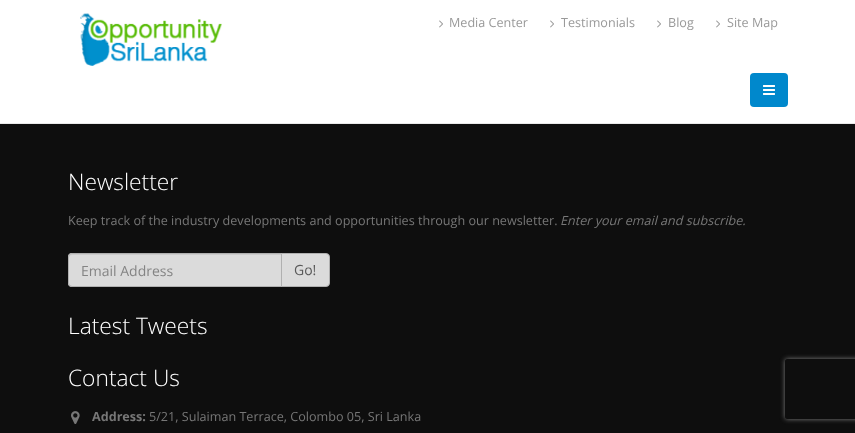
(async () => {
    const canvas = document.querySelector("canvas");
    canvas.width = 855;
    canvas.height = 433;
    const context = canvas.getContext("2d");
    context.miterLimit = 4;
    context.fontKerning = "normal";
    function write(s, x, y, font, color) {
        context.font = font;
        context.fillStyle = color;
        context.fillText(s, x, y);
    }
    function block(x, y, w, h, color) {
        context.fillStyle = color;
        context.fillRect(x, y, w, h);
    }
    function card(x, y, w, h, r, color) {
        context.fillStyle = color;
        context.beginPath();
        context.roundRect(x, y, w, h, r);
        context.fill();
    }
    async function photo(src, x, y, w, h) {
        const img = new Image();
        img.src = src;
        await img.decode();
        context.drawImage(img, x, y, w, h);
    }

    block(0, 0, 855, 433, "rgb(14, 14, 14)");
    block(0, 0, 855, 123, "rgb(255, 255, 255)");
    block(0, 123, 855, 1, "rgb(233, 233, 233)");
    await photo("media/1.png", 80, 13, 142, 53);
    await photo("media/2.png", 439, 20, 4, 8);
    write("Media Center", 449, 27, "12.6px Open Sans", "rgb(153, 153, 153)");
    await photo("media/2.png", 550, 20, 4, 8);
    write("Testimonials", 561, 27, "12.6px Open Sans", "rgb(153, 153, 153)");
    await photo("media/2.png", 657, 20, 4, 8);
    write("Blog", 668, 27, "12.6px Open Sans", "rgb(153, 153, 153)");
    await photo("media/2.png", 716, 20, 4, 8);
    write("Site Map", 727, 27, "12.6px Open Sans", "rgb(153, 153, 153)");
    card(750, 73, 38, 34, 4, "rgb(0, 136, 204)");
    await photo("media/3.png", 763, 85, 12, 10);
    write("Newsletter", 68, 190, "300 22.75px Open Sans", "rgb(255, 255, 255)");
    write("Keep track of the industry developments and opportunities through our newsletter.", 68, 225, "12.6px Open Sans", "rgb(119, 119, 119)");
    write("Enter your email and subscribe.", 560, 225, "italic 12.6px Open Sans", "rgb(119, 119, 119)");
    context.fillStyle = "rgb(219, 219, 219)";
    context.beginPath();
    context.roundRect(68, 253, 214, 34, [4, 0, 0, 4]);
    context.fill();
    context.fillStyle = "rgb(203, 203, 203)";
    context.beginPath();
    context.moveTo(72, 255);
    context.lineTo(281, 255);
    context.lineTo(281, 254);
    context.lineTo(72, 254);
    context.bezierCurveTo(70, 254, 69, 255, 69, 257);
    context.lineTo(69, 258);
    context.bezierCurveTo(69, 256, 70, 255, 72, 255);
    context.closePath();
    context.fill();
    context.beginPath();
    context.roundRect(68.5, 253.5, 213, 33, [3.5, 0, 0, 3.5]);
    context.strokeStyle = "rgb(176, 176, 176)";
    context.stroke();
    write("Email Address", 81, 276, "14px Open Sans", "rgb(132, 132, 132)");
    context.fillStyle = "rgb(219, 219, 219)";
    context.beginPath();
    context.roundRect(281.5, 253.5, 48, 33, [0, 3.5, 3.5, 0]);
    context.fill();
    context.stroke();
    write("Go!", 294, 275, "14px Open Sans", "rgb(89, 89, 89)");
    write("Latest Tweets", 68, 334, "300 22.75px Open Sans", "rgb(255, 255, 255)");
    write("Contact Us", 68, 386, "300 22.75px Open Sans", "rgb(255, 255, 255)");
    await photo("media/4.png", 71, 411, 9, 13);
    write("Address:", 92, 421, "bold 12.6px Open Sans", "rgb(119, 119, 119)");
    write("5/21, Sulaiman Terrace, Colombo 05, Sri Lanka", 149, 421, "12.6px Open Sans", "rgb(119, 119, 119)");
    context.save();
    context.beginPath();
    context.moveTo(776, 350);
    context.lineTo(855, 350);
    context.lineTo(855, 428);
    context.lineTo(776, 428);
    context.closePath();
    context.moveTo(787, 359);
    context.lineTo(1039, 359);
    context.bezierCurveTo(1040, 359, 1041, 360, 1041, 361);
    context.lineTo(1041, 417);
    context.bezierCurveTo(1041, 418, 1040, 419, 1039, 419);
    context.lineTo(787, 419);
    context.bezierCurveTo(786, 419, 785, 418, 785, 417);
    context.lineTo(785, 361);
    context.bezierCurveTo(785, 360, 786, 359, 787, 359);
    context.closePath();
    context.clip("evenodd");
    context.fillStyle = "rgb(128, 128, 128)";
    context.filter = "blur(2.5px)";
    context.beginPath();
    context.roundRect(785, 359, 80, 60, 2);
    context.fill();
    context.filter = "none";
    context.restore();
})();
